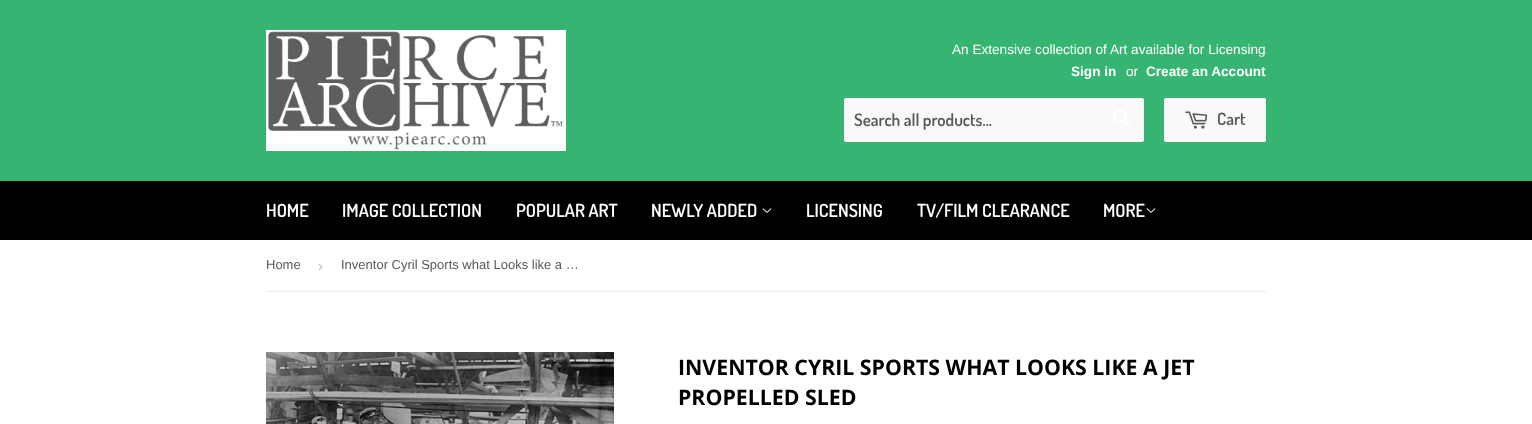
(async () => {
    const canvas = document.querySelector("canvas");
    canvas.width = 1532;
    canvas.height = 424;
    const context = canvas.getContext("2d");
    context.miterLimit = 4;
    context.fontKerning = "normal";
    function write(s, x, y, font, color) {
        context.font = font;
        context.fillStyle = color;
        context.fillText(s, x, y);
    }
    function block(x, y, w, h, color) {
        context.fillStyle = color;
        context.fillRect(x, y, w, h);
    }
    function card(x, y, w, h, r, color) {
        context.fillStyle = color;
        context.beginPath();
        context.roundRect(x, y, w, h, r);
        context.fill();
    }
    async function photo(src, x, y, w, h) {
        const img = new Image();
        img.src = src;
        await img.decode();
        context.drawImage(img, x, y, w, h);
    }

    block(0, 0, 1532, 424, "rgb(255, 255, 255)");
    block(0, 0, 1532, 181, "rgb(54, 180, 113)");
    await photo("media/1.png", 266, 30, 300, 121);
    write("An Extensive collection of Art available for Licensing", 952, 54, "13.6px Liberation Sans", "rgb(255, 255, 255)");
    write("Sign in", 1071, 76, "bold 13.6px Liberation Sans", "rgb(255, 255, 255)");
    write("or", 1126, 76, "13.6px Liberation Sans", "rgb(255, 255, 255)");
    write("Create an Account", 1146, 76, "bold 13.6px Liberation Sans", "rgb(255, 255, 255)");
    card(844, 98, 300, 44, 2, "rgb(249, 249, 249)");
    write("Search all products...", 854, 126, "600 17px Dosis", "rgb(88, 88, 88)");
    await photo("media/2.png", 1113, 110, 18, 17);
    card(1164, 98, 102, 44, 2, "rgb(249, 249, 249)");
    await photo("media/3.png", 1185, 111, 23, 18);
    write("Cart", 1217, 125, "600 17px Dosis", "rgb(88, 88, 88)");
    block(0, 181, 1532, 59, "rgb(0, 0, 0)");
    write("HOME", 266, 217, "600 18px Dosis", "rgb(255, 255, 255)");
    write("IMAGE COLLECTION", 342, 217, "600 18px Dosis", "rgb(255, 255, 255)");
    write("POPULAR ART", 516, 217, "600 18px Dosis", "rgb(255, 255, 255)");
    write("NEWLY ADDED", 651, 217, "600 18px Dosis", "rgb(255, 255, 255)");
    await photo("media/4.png", 762, 208, 10, 5);
    write("LICENSING", 806, 217, "600 18px Dosis", "rgb(255, 255, 255)");
    write("TV/FILM CLEARANCE", 917, 217, "600 18px Dosis", "rgb(255, 255, 255)");
    write("MORE", 1103, 217, "600 18px Dosis", "rgb(255, 255, 255)");
    await photo("media/4.png", 1146, 208, 10, 5);
    block(266, 291, 1000, 1, "rgb(236, 236, 236)");
    write("Home", 266, 269, "13px Liberation Sans", "rgb(88, 88, 88)");
    write("›", 318, 271, "15px Liberation Sans", "rgb(187, 187, 187)");
    write("Inventor Cyril Sports what Looks like a …", 341, 269, "13px Liberation Sans", "rgb(88, 88, 88)");
    await photo("media/5.png", 266, 352, 348, 72);
    write("INVENTOR CYRIL SPORTS WHAT LOOKS LIKE A JET", 678, 375, "bold 21.3px Open Sans", "rgb(0, 0, 0)");
    write("PROPELLED SLED", 678, 405, "bold 21.3px Open Sans", "rgb(0, 0, 0)");
})();
